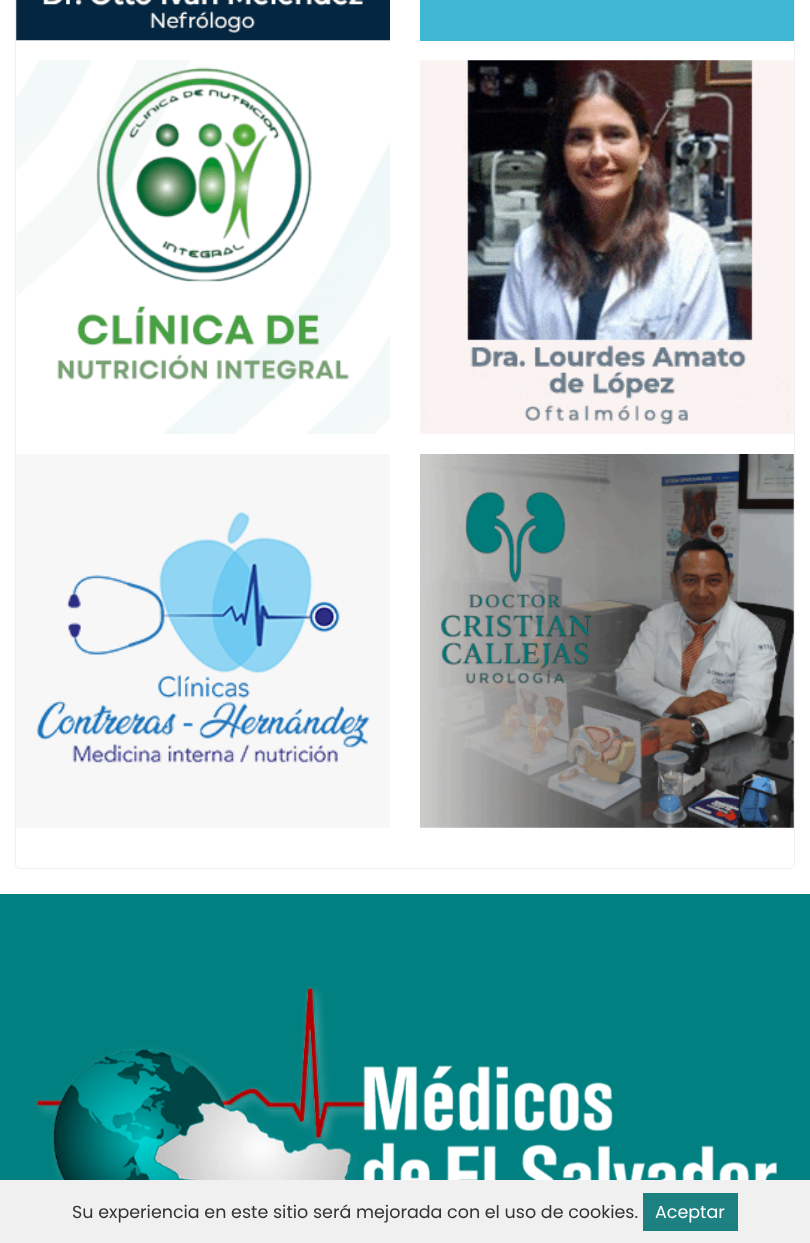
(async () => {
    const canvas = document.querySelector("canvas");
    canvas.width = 810;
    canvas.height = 1243;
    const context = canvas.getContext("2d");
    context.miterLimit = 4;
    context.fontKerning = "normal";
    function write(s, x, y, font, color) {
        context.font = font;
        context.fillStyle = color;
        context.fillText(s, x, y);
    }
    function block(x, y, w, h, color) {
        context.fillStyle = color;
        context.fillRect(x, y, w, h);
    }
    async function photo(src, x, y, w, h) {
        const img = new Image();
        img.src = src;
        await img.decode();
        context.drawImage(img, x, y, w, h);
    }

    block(0, 0, 810, 1243, "rgb(255, 255, 255)");
    context.beginPath();
    context.roundRect(15.5, -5.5, 779, 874, 4.5);
    context.strokeStyle = "rgb(240, 240, 240)";
    context.stroke();
    await photo("media/1.png", 16, 0, 374, 41);
    block(420, 0, 374, 41, "rgb(64, 182, 213)");
    await photo("media/2.png", 16, 60, 374, 374);
    await photo("media/3.png", 420, 60, 374, 374);
    await photo("media/4.png", 16, 454, 374, 374);
    await photo("media/5.png", 420, 454, 374, 374);
    block(0, 894, 810, 286, "rgb(0, 128, 128)");
    await photo("media/6.png", 36, 987, 741, 193);
    block(0, 1180, 810, 63, "rgb(240, 240, 240)");
    write("Su experiencia en este sitio será mejorada con el uso de cookies.", 72, 1218, "17.5px Poppins", "rgb(51, 51, 51)");
    block(643, 1193, 95, 38, "rgb(28, 129, 128)");
    write("Aceptar", 655, 1218, "17.5px Poppins", "rgb(255, 255, 255)");
})();
